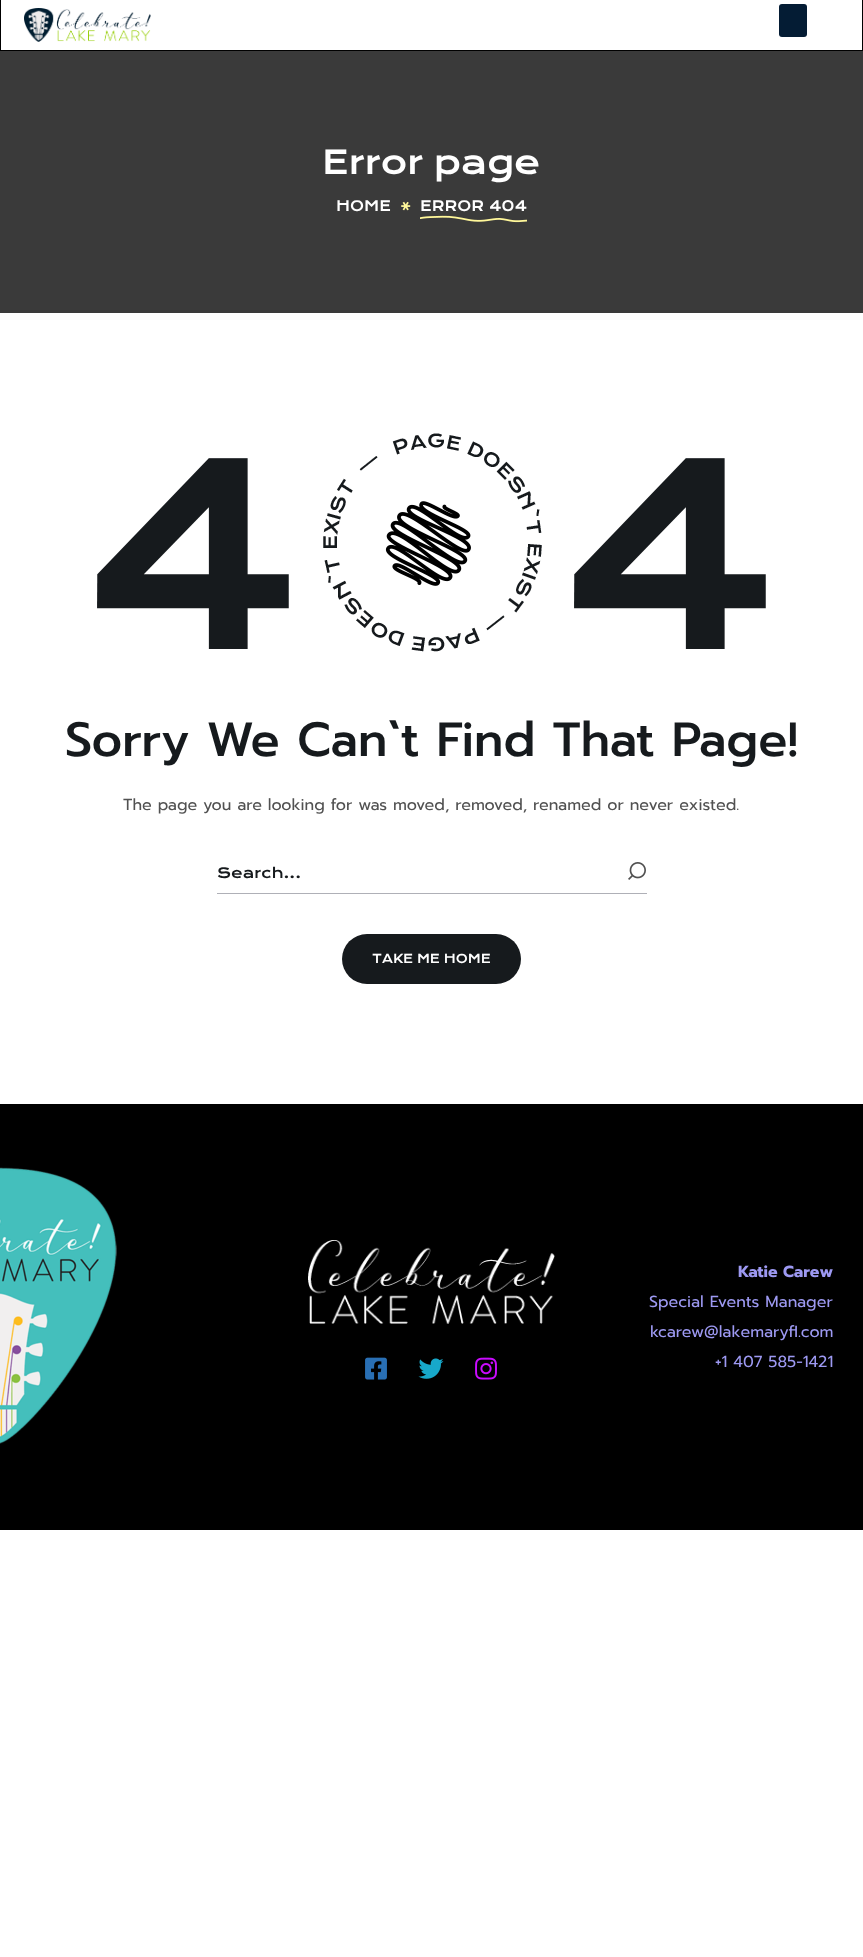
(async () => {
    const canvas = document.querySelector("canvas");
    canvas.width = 863;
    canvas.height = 1957;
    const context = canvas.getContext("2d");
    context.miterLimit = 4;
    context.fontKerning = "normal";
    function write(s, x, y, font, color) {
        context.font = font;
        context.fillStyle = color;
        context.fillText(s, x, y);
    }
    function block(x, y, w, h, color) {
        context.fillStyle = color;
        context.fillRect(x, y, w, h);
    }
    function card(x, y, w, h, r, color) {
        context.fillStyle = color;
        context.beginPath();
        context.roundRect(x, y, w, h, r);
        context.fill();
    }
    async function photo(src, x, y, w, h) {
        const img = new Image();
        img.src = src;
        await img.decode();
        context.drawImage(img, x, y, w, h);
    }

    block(0, 0, 863, 1957, "rgb(255, 255, 255)");
    block(862, 0, 1, 51, "rgb(0, 0, 0)");
    block(0, 50, 863, 1, "rgb(0, 0, 0)");
    block(0, 0, 1, 51, "rgb(0, 0, 0)");
    await photo("media/1.png", 24, 8, 127, 34);
    card(779, 4, 28, 33, 3, "rgb(4, 28, 52)");
    block(0, 51, 863, 262, "rgb(58, 58, 58)");
    write("Error page", 322, 174, "32px Krona One", "rgb(255, 255, 255)");
    write("HOME", 336, 211, "14px Krona One", "rgb(255, 255, 255)");
    await photo("media/2.png", 401, 201, 10, 10);
    write("ERROR 404", 420, 211, "14px Krona One", "rgb(255, 255, 255)");
    await photo("media/3.png", 420, 215, 107, 8);
    await photo("media/4.png", 97, 433, 669, 219);
    write("Sorry We Can`t Find That Page!", 65, 756, "500 48px Prompt", "rgb(22, 26, 29)");
    write("The page you are looking for was moved, removed, renamed or never existed.", 123, 810, "16px Prompt", "rgb(81, 81, 81)");
    block(217, 893, 430, 1, "rgb(175, 176, 183)");
    write("Search...", 217, 878, "14px Krona One", "rgb(22, 26, 29)");
    await photo("media/5.png", 628, 862, 18, 18);
    card(342, 934, 179, 50, 25, "rgb(22, 26, 29)");
    write("TAKE ME HOME", 372, 963, "12px Krona One", "rgb(255, 255, 255)");
    block(0, 1104, 863, 426, "rgb(0, 0, 0)");
    await photo("media/6.png", 0, 1167, 117, 277);
    await photo("media/7.png", 308, 1240, 247, 84);
    await photo("media/8.png", 365, 1357, 22, 23);
    await photo("media/9.png", 418, 1358, 26, 21);
    await photo("media/10.png", 475, 1357, 22, 23);
    write("Katie Carew", 738, 1277, "bold 16px Prompt", "rgb(157, 153, 242)");
    write("Special Events Manager", 649, 1307, "16px Prompt", "rgb(157, 153, 242)");
    write("kcarew@lakemaryfl.com", 650, 1337, "16px Prompt", "rgb(157, 153, 242)");
    write("+1 407 585-1421", 715, 1367, "16px Prompt", "rgb(157, 153, 242)");
})();
